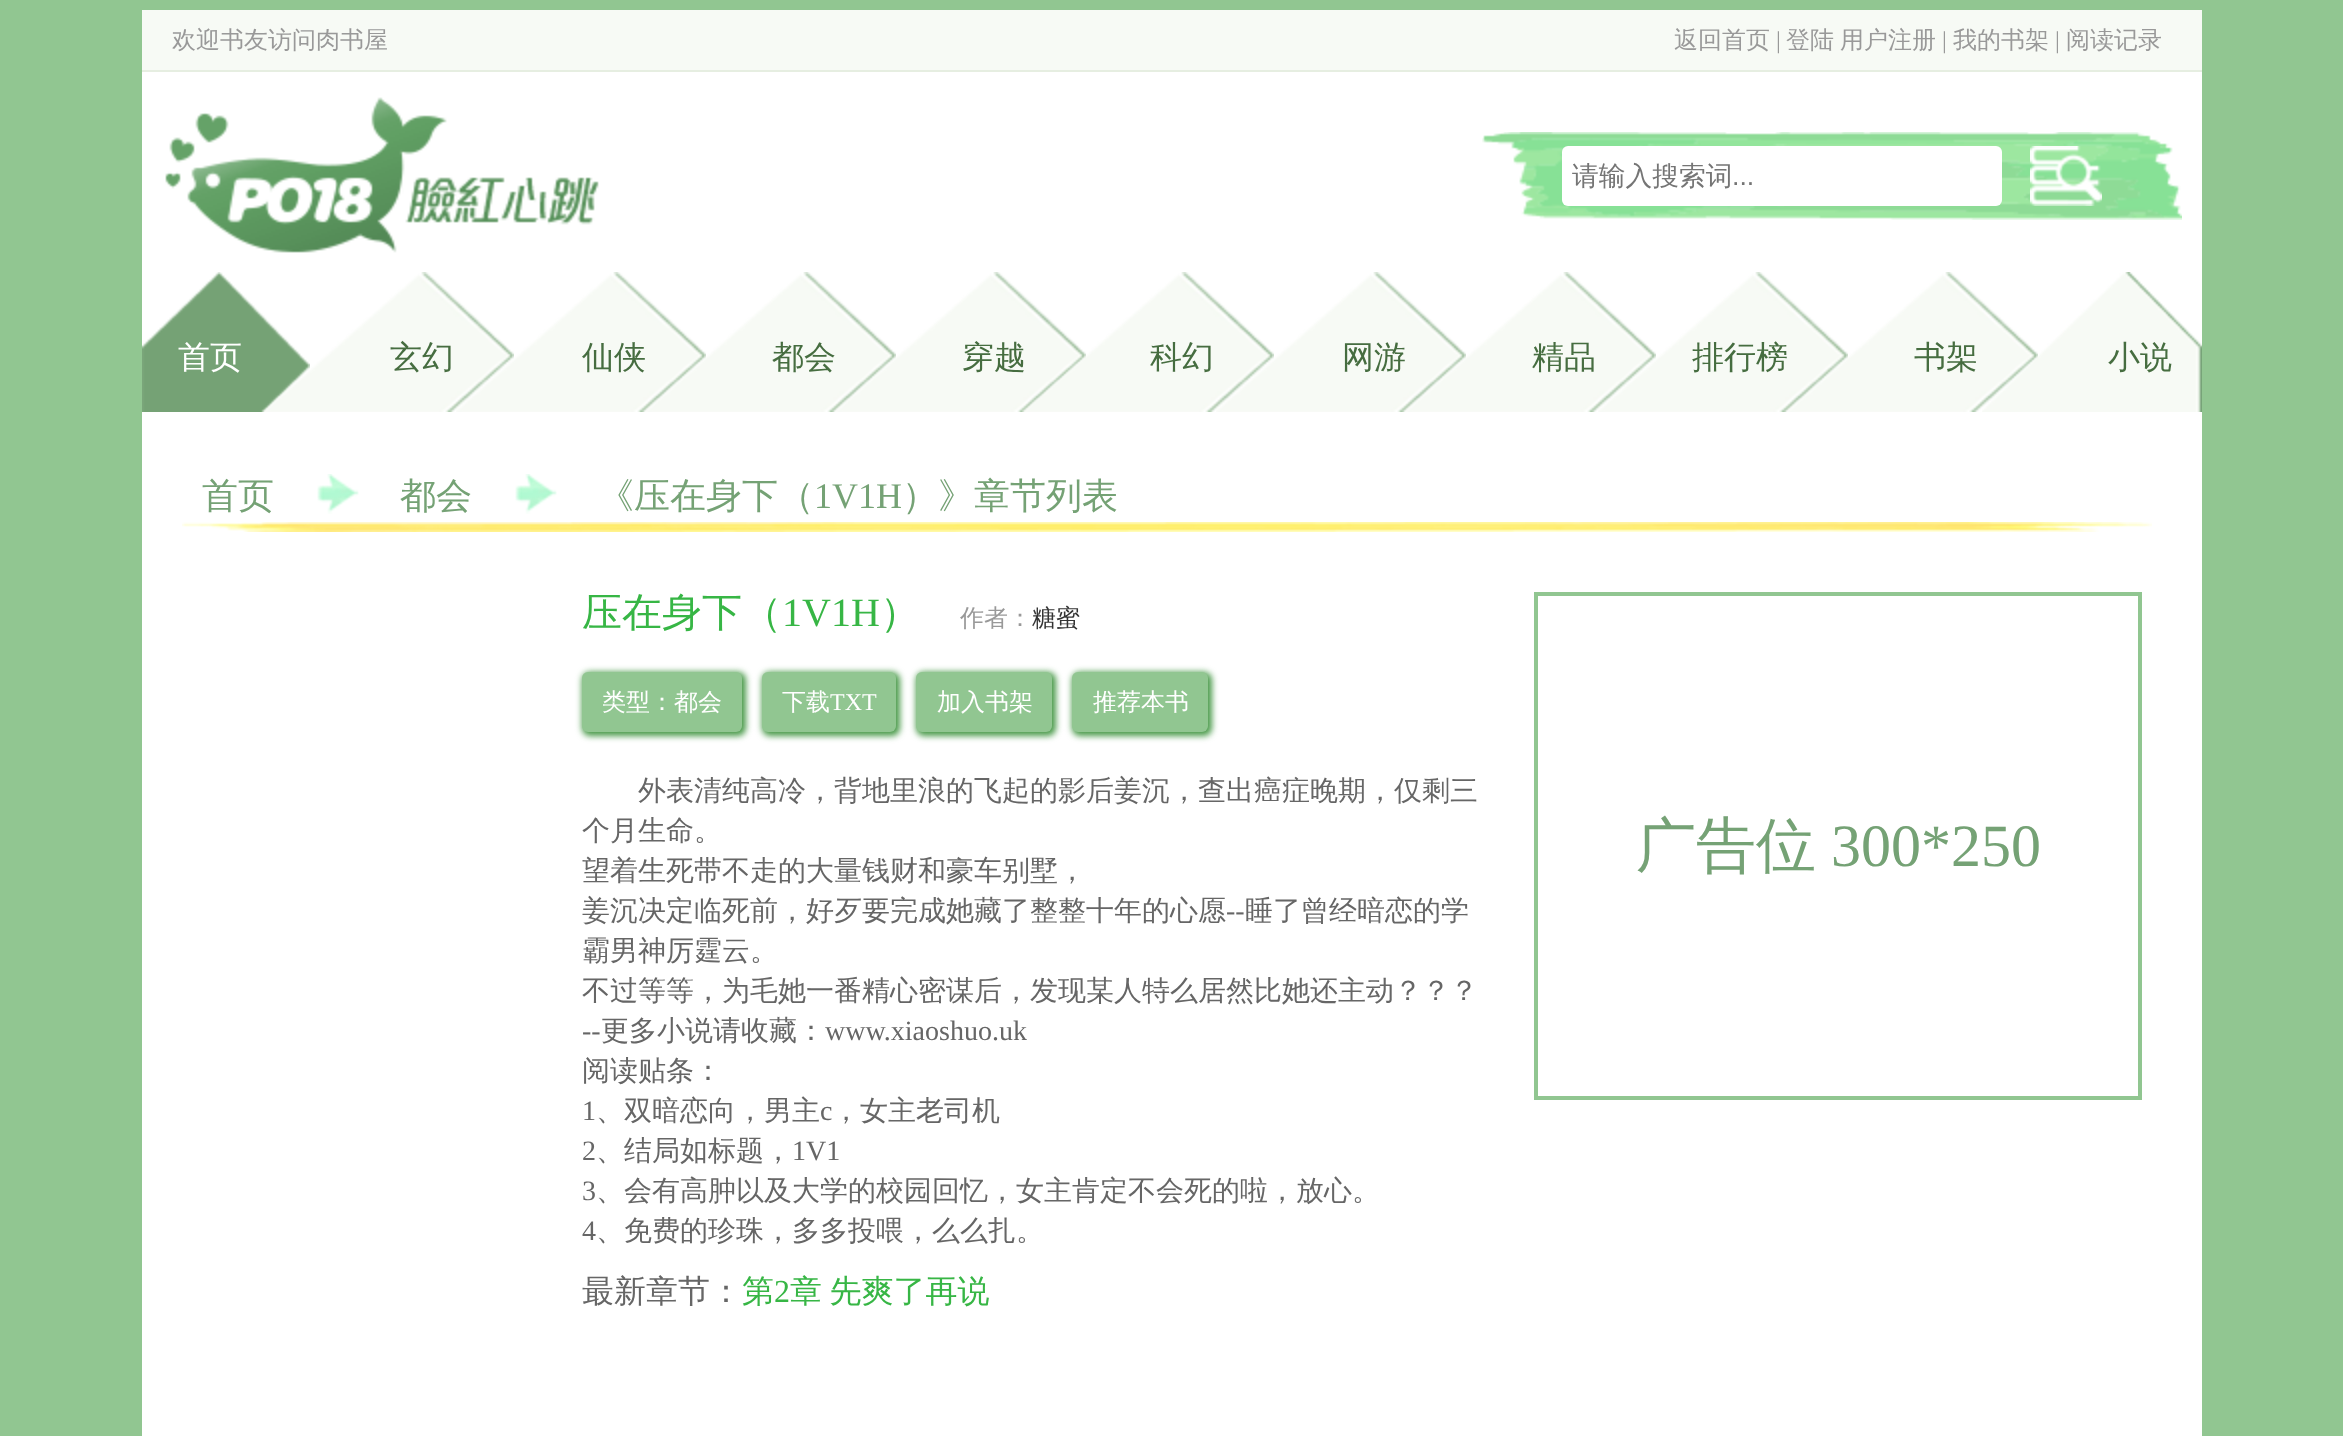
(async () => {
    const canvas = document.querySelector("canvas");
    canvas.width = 2343;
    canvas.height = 1436;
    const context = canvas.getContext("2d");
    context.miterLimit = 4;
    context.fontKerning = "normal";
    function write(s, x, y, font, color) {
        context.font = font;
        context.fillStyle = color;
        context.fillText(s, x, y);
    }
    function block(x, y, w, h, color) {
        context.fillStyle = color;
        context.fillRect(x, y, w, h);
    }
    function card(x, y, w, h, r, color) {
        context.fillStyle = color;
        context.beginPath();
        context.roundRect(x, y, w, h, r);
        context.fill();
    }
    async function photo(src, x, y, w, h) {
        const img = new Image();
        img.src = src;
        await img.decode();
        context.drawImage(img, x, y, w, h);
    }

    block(0, 0, 2343, 1436, "rgb(145, 198, 145)");
    block(142, 10, 2060, 60, "rgb(247, 250, 245)");
    block(142, 70, 2060, 2, "rgb(230, 238, 225)");
    write("欢迎书友访问肉书屋", 172, 48, "500 24px WenQuanYi Zen Hei", "rgb(153, 153, 153)");
    write("返回首页", 1674, 48, "500 24px WenQuanYi Zen Hei", "rgb(153, 153, 153)");
    write("|", 1776, 48, "24px Liberation Serif", "rgb(153, 153, 153)");
    write("登陆", 1786, 48, "500 24px WenQuanYi Zen Hei", "rgb(153, 153, 153)");
    write("用户注册", 1840, 48, "500 24px WenQuanYi Zen Hei", "rgb(153, 153, 153)");
    write("|", 1942, 48, "24px Liberation Serif", "rgb(153, 153, 153)");
    write("我的书架", 1953, 48, "500 24px WenQuanYi Zen Hei", "rgb(153, 153, 153)");
    write("|", 2055, 48, "24px Liberation Serif", "rgb(153, 153, 153)");
    write("阅读记录", 2066, 48, "500 24px WenQuanYi Zen Hei", "rgb(153, 153, 153)");
    block(142, 72, 2060, 340, "rgb(255, 255, 255)");
    await photo("media/1.png", 165, 97, 434, 156);
    await photo("media/2.png", 1482, 132, 700, 88);
    card(1562, 146, 440, 60, 6, "rgb(255, 255, 255)");
    write("请输入搜索词", 1572, 185, "500 26.75px WenQuanYi Zen Hei", "rgb(117, 117, 117)");
    write("...", 1732, 185, "26.75px Liberation Sans", "rgb(117, 117, 117)");
    await photo("media/3.png", 2030, 146, 72, 60);
    await photo("media/4.png", 142, 272, 168, 140);
    write("首页", 178, 368, "500 32px WenQuanYi Zen Hei", "rgb(255, 255, 255)");
    await photo("media/5.png", 262, 272, 252, 140);
    write("玄幻", 390, 368, "500 32px WenQuanYi Zen Hei", "rgb(70, 109, 64)");
    await photo("media/6.png", 456, 272, 250, 140);
    write("仙侠", 582, 368, "500 32px WenQuanYi Zen Hei", "rgb(70, 109, 64)");
    await photo("media/7.png", 644, 272, 252, 140);
    write("都会", 772, 368, "500 32px WenQuanYi Zen Hei", "rgb(70, 109, 64)");
    await photo("media/8.png", 834, 272, 252, 140);
    write("穿越", 962, 368, "500 32px WenQuanYi Zen Hei", "rgb(70, 109, 64)");
    await photo("media/9.png", 1022, 272, 252, 140);
    write("科幻", 1150, 368, "500 32px WenQuanYi Zen Hei", "rgb(70, 109, 64)");
    await photo("media/6.png", 1216, 272, 250, 140);
    write("网游", 1342, 368, "500 32px WenQuanYi Zen Hei", "rgb(70, 109, 64)");
    await photo("media/10.png", 1404, 272, 252, 140);
    write("精品", 1532, 368, "500 32px WenQuanYi Zen Hei", "rgb(70, 109, 64)");
    await photo("media/6.png", 1598, 272, 250, 140);
    write("排行榜", 1692, 368, "500 32px WenQuanYi Zen Hei", "rgb(70, 109, 64)");
    await photo("media/11.png", 1786, 272, 252, 140);
    write("书架", 1914, 368, "500 32px WenQuanYi Zen Hei", "rgb(70, 109, 64)");
    await photo("media/12.png", 1982, 272, 220, 140);
    write("小说", 2108, 368, "500 32px WenQuanYi Zen Hei", "rgb(70, 109, 64)");
    block(142, 412, 2060, 1024, "rgb(255, 255, 255)");
    await photo("media/13.png", 182, 522, 1970, 10);
    write("首页", 202, 508, "500 36px WenQuanYi Zen Hei", "rgb(117, 162, 117)");
    await photo("media/14.png", 317, 474, 42, 40);
    write("都会", 400, 508, "500 36px WenQuanYi Zen Hei", "rgb(117, 162, 117)");
    await photo("media/14.png", 515, 474, 42, 40);
    write("《压在身下（", 598, 508, "500 36px WenQuanYi Zen Hei", "rgb(117, 162, 117)");
    write("1V1H", 814, 508, "36px Liberation Serif", "rgb(117, 162, 117)");
    write("）》章节列表", 902, 508, "500 36px WenQuanYi Zen Hei", "rgb(117, 162, 117)");
    write("压在身下（", 582, 626, "500 40px WenQuanYi Zen Hei", "rgb(55, 182, 69)");
    write("1V1H", 782, 626, "40px Liberation Serif", "rgb(55, 182, 69)");
    write("）", 880, 626, "500 40px WenQuanYi Zen Hei", "rgb(55, 182, 69)");
    write("作者：", 960, 626, "500 24px WenQuanYi Zen Hei", "rgb(153, 153, 153)");
    write("糖蜜", 1032, 626, "500 24px WenQuanYi Zen Hei", "rgb(51, 51, 51)");
    context.fillStyle = "rgb(72, 153, 72)";
    context.filter = "blur(3px)";
    context.beginPath();
    context.roundRect(582, 672, 164, 64, 8);
    context.fill();
    context.filter = "none";
    card(582, 672, 160, 60, 6, "rgb(145, 198, 145)");
    write("类型：都会", 602, 710, "500 24px WenQuanYi Zen Hei", "rgb(255, 255, 255)");
    context.fillStyle = "rgb(72, 153, 72)";
    context.filter = "blur(3px)";
    context.beginPath();
    context.roundRect(762, 672, 138, 64, 8);
    context.fill();
    context.filter = "none";
    card(762, 672, 134, 60, 6, "rgb(145, 198, 145)");
    write("下载", 782, 710, "500 24px WenQuanYi Zen Hei", "rgb(255, 255, 255)");
    write("TXT", 830, 710, "24px Liberation Serif", "rgb(255, 255, 255)");
    context.fillStyle = "rgb(72, 153, 72)";
    context.filter = "blur(3px)";
    context.beginPath();
    context.roundRect(916, 672, 140, 64, 8);
    context.fill();
    context.filter = "none";
    card(916, 672, 136, 60, 6, "rgb(145, 198, 145)");
    write("加入书架", 937, 710, "500 24px WenQuanYi Zen Hei", "rgb(255, 255, 255)");
    context.fillStyle = "rgb(72, 153, 72)";
    context.filter = "blur(3px)";
    context.beginPath();
    context.roundRect(1072, 672, 140, 64, 8);
    context.fill();
    context.filter = "none";
    card(1072, 672, 136, 60, 6, "rgb(145, 198, 145)");
    write("推荐本书", 1093, 710, "500 24px WenQuanYi Zen Hei", "rgb(255, 255, 255)");
    write("外表清纯高冷，背地里浪的飞起的影后姜沉，查出癌症晚期，仅剩三", 638, 800, "500 28px WenQuanYi Zen Hei", "rgb(102, 102, 102)");
    write("个月生命。", 582, 840, "500 28px WenQuanYi Zen Hei", "rgb(102, 102, 102)");
    write("望着生死带不走的大量钱财和豪车别墅，", 582, 880, "500 28px WenQuanYi Zen Hei", "rgb(102, 102, 102)");
    write("姜沉决定临死前，好歹要完成她藏了整整十年的心愿", 582, 920, "500 28px WenQuanYi Zen Hei", "rgb(102, 102, 102)");
    write("--", 1226, 920, "28px Liberation Serif", "rgb(102, 102, 102)");
    write("睡了曾经暗恋的学", 1245, 920, "500 28px WenQuanYi Zen Hei", "rgb(102, 102, 102)");
    write("霸男神厉霆云。", 582, 960, "500 28px WenQuanYi Zen Hei", "rgb(102, 102, 102)");
    write("不过等等，为毛她一番精心密谋后，发现某人特么居然比她还主动？？？", 582, 1000, "500 28px WenQuanYi Zen Hei", "rgb(102, 102, 102)");
    write("--", 582, 1040, "28px Liberation Serif", "rgb(102, 102, 102)");
    write("更多小说请收藏：", 601, 1040, "500 28px WenQuanYi Zen Hei", "rgb(102, 102, 102)");
    write("www.xiaoshuo.uk", 825, 1040, "28px Liberation Serif", "rgb(102, 102, 102)");
    write("阅读贴条：", 582, 1080, "500 28px WenQuanYi Zen Hei", "rgb(102, 102, 102)");
    write("1", 582, 1120, "28px Liberation Serif", "rgb(102, 102, 102)");
    write("、双暗恋向，男主", 596, 1120, "500 28px WenQuanYi Zen Hei", "rgb(102, 102, 102)");
    write("c", 820, 1120, "28px Liberation Serif", "rgb(102, 102, 102)");
    write("，女主老司机", 832, 1120, "500 28px WenQuanYi Zen Hei", "rgb(102, 102, 102)");
    write("2", 582, 1160, "28px Liberation Serif", "rgb(102, 102, 102)");
    write("、结局如标题，", 596, 1160, "500 28px WenQuanYi Zen Hei", "rgb(102, 102, 102)");
    write("1V1", 792, 1160, "28px Liberation Serif", "rgb(102, 102, 102)");
    write("3", 582, 1200, "28px Liberation Serif", "rgb(102, 102, 102)");
    write("、会有高肿以及大学的校园回忆，女主肯定不会死的啦，放心。", 596, 1200, "500 28px WenQuanYi Zen Hei", "rgb(102, 102, 102)");
    write("4", 582, 1240, "28px Liberation Serif", "rgb(102, 102, 102)");
    write("、免费的珍珠，多多投喂，么么扎。", 596, 1240, "500 28px WenQuanYi Zen Hei", "rgb(102, 102, 102)");
    write("最新章节：", 582, 1302, "500 32px WenQuanYi Zen Hei", "rgb(102, 102, 102)");
    write("第", 742, 1302, "500 32px WenQuanYi Zen Hei", "rgb(55, 182, 69)");
    write("2", 774, 1302, "32px Liberation Serif", "rgb(55, 182, 69)");
    context.wordSpacing = "-2px";
    write("章 先爽了再说", 790, 1302, "500 32px WenQuanYi Zen Hei", "rgb(55, 182, 69)");
    context.strokeStyle = "rgb(145, 198, 145)";
    context.lineWidth = 4;
    context.strokeRect(1536, 594, 604, 504);
    context.wordSpacing = "0px";
    write("广告位", 1636, 866, "500 60px WenQuanYi Zen Hei", "rgb(117, 162, 117)");
    write("300*250", 1831, 866, "60px Liberation Serif", "rgb(117, 162, 117)");
})();
